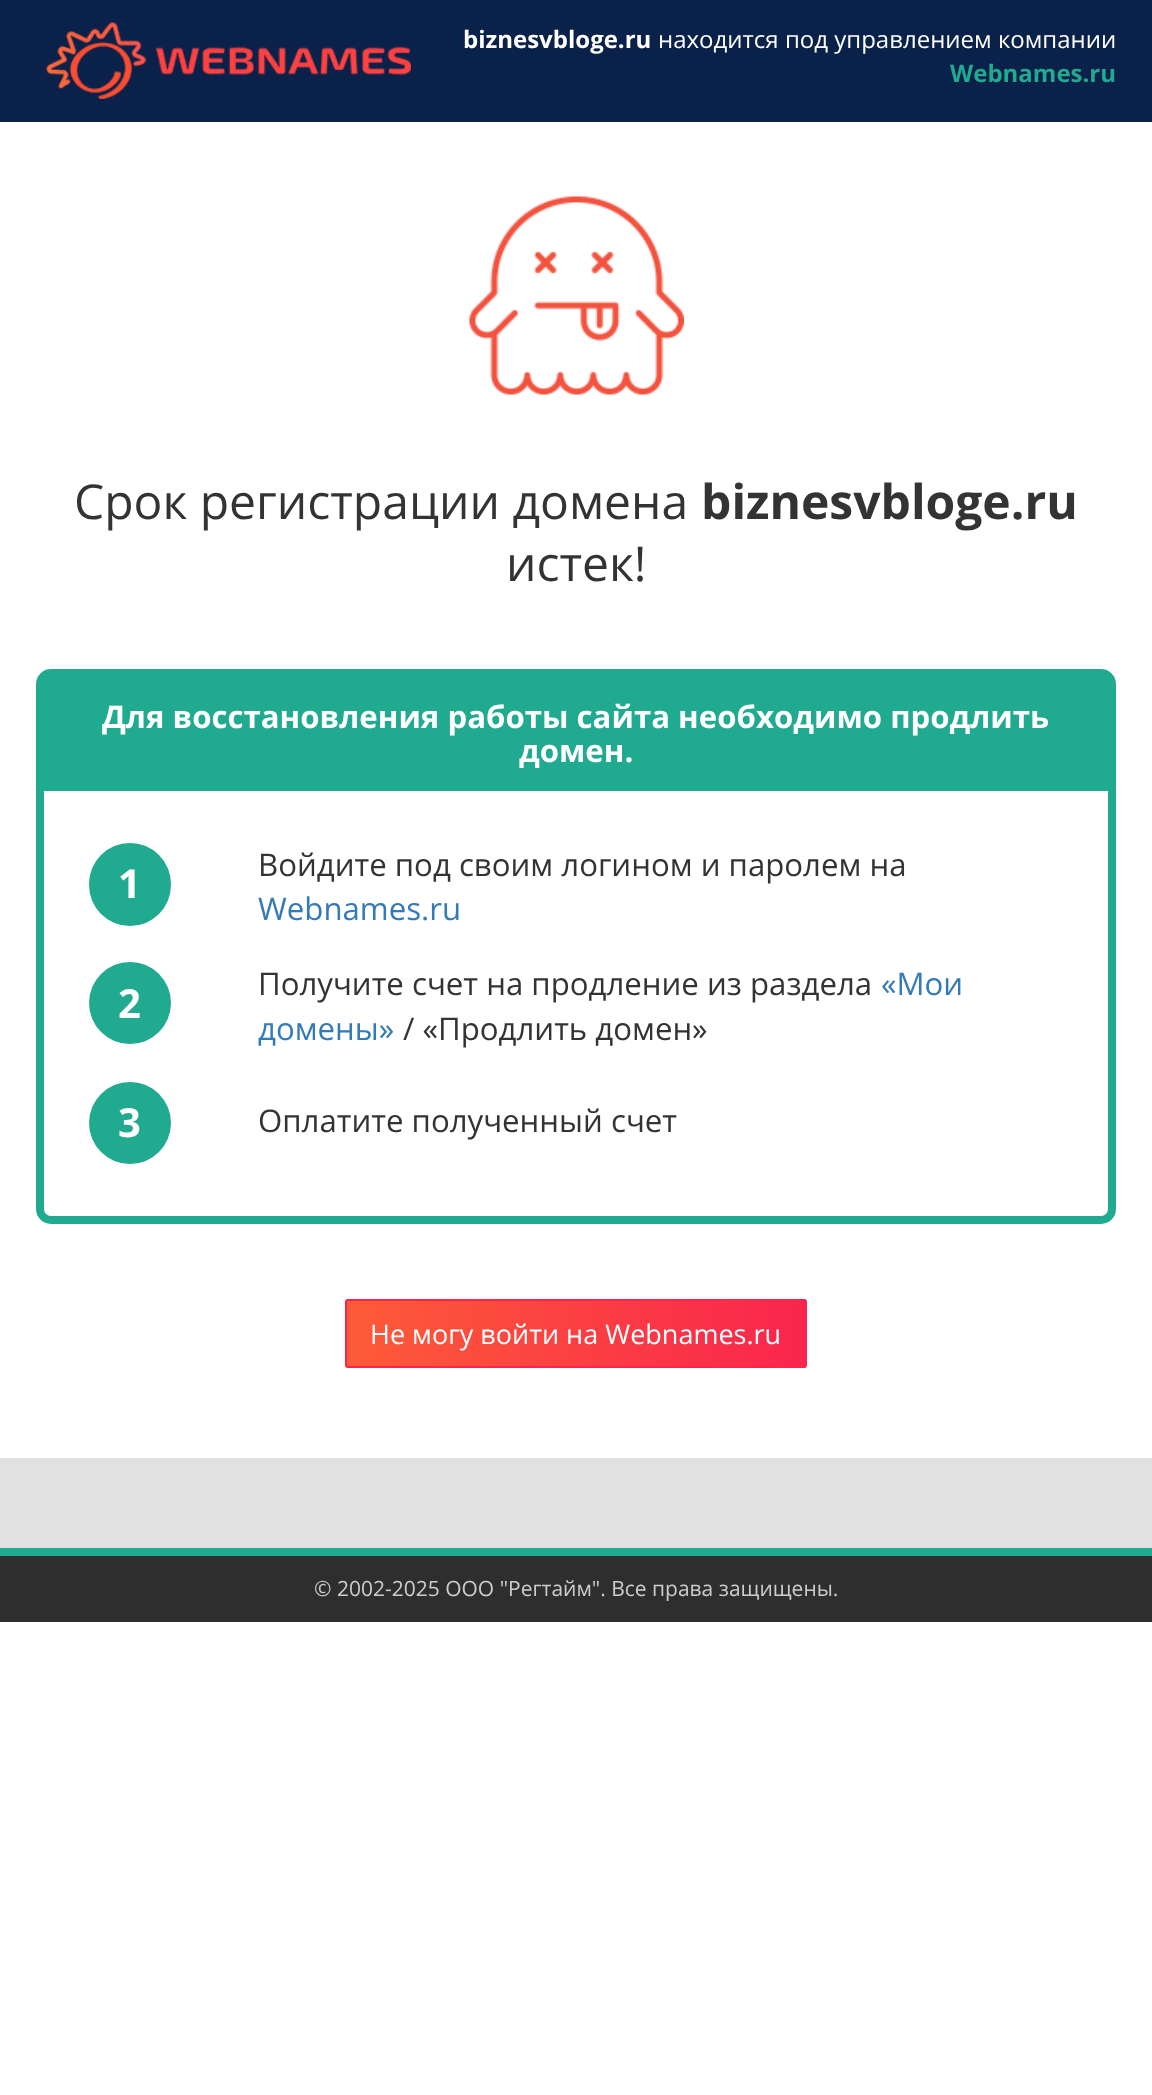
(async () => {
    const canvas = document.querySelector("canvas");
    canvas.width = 1152;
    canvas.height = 2095;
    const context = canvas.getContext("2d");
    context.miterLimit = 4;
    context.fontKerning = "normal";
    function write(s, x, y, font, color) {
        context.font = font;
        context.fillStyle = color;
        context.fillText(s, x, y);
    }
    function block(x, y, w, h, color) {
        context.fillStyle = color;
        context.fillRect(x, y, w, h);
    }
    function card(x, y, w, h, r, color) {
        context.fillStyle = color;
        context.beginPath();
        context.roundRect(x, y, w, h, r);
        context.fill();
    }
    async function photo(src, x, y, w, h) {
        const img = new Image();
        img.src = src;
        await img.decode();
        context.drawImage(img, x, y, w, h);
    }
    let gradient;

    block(0, 0, 1152, 2095, "rgb(255, 255, 255)");
    block(0, 0, 1152, 122, "rgb(10, 33, 74)");
    await photo("media/1.png", 46, 22, 365, 77);
    write("biznesvbloge.ru", 463, 48, "bold 24px Open Sans", "rgb(255, 255, 255)");
    write("находится под управлением компании", 658, 48, "24px Open Sans", "rgb(255, 255, 255)");
    write("Webnames.ru", 950, 82, "bold 24px Open Sans", "rgb(32, 170, 144)");
    await photo("media/2.png", 469, 196, 215, 199);
    write("Срок регистрации домена", 74, 519, "48px Open Sans", "rgb(51, 51, 51)");
    write("biznesvbloge.ru", 701, 519, "bold 48px Open Sans", "rgb(51, 51, 51)");
    write("истек!", 506, 581, "48px Open Sans", "rgb(51, 51, 51)");
    context.beginPath();
    context.roundRect(40, 673, 1072, 547, 11);
    context.strokeStyle = "rgb(32, 170, 144)";
    context.lineWidth = 8;
    context.stroke();
    block(44, 677, 1064, 114, "rgb(32, 170, 144)");
    write("Для восстановления работы сайта необходимо продлить", 102, 728, "bold 31.2px Open Sans", "rgb(255, 255, 255)");
    write("домен.", 519, 762, "bold 31.2px Open Sans", "rgb(255, 255, 255)");
    card(89, 843, 82, 83, 41, "rgb(32, 170, 144)");
    write("1", 118, 898, "bold 40px Open Sans", "rgb(255, 255, 255)");
    write("Войдите под своим логином и паролем на", 258, 876, "31.2px Open Sans", "rgb(51, 51, 51)");
    write("Webnames.ru", 258, 920, "31.2px Open Sans", "rgb(51, 122, 183)");
    context.fillStyle = "rgb(32, 170, 144)";
    context.beginPath();
    context.arc(130, 1003, 41, 0, Math.PI * 2);
    context.fill();
    write("2", 118, 1018, "bold 40px Open Sans", "rgb(255, 255, 255)");
    write("Получите счет на продление из раздела", 258, 995, "31.2px Open Sans", "rgb(51, 51, 51)");
    write("«Мои", 881, 995, "31.2px Open Sans", "rgb(51, 122, 183)");
    write("домены»", 258, 1040, "31.2px Open Sans", "rgb(51, 122, 183)");
    write("/ «Продлить домен»", 403, 1040, "31.2px Open Sans", "rgb(51, 51, 51)");
    context.fillStyle = "rgb(32, 170, 144)";
    context.beginPath();
    context.arc(130, 1123, 41, 0, Math.PI * 2);
    context.fill();
    write("3", 118, 1137, "bold 40px Open Sans", "rgb(255, 255, 255)");
    write("Оплатите полученный счет", 258, 1132, "31.2px Open Sans", "rgb(51, 51, 51)");
    context.save();
    context.beginPath();
    context.roundRect(345, 1299, 462, 69, 3);
    context.clip();
    gradient = context.createLinearGradient(347, 1334, 806, 1334);
    gradient.addColorStop(0, "rgb(253, 91, 56)");
    gradient.addColorStop(1, "rgb(249, 37, 77)");
    context.fillStyle = gradient;
    context.fillRect(347, 1299, 459, 69);
    context.restore();
    context.beginPath();
    context.roundRect(346, 1300, 460, 67, 2);
    context.strokeStyle = "rgb(249, 37, 77)";
    context.lineWidth = 2;
    context.stroke();
    write("Не могу войти на Webnames.ru", 370, 1344, "27px Open Sans", "rgb(255, 255, 255)");
    block(0, 1458, 1152, 90, "rgb(225, 225, 225)");
    block(0, 1556, 1152, 66, "rgb(46, 46, 46)");
    block(0, 1548, 1152, 8, "rgb(32, 170, 144)");
    write("© 2002-2025 ООО \"Регтайм\". Все права защищены.", 314, 1596, "21px Open Sans", "rgb(204, 204, 204)");
})();
